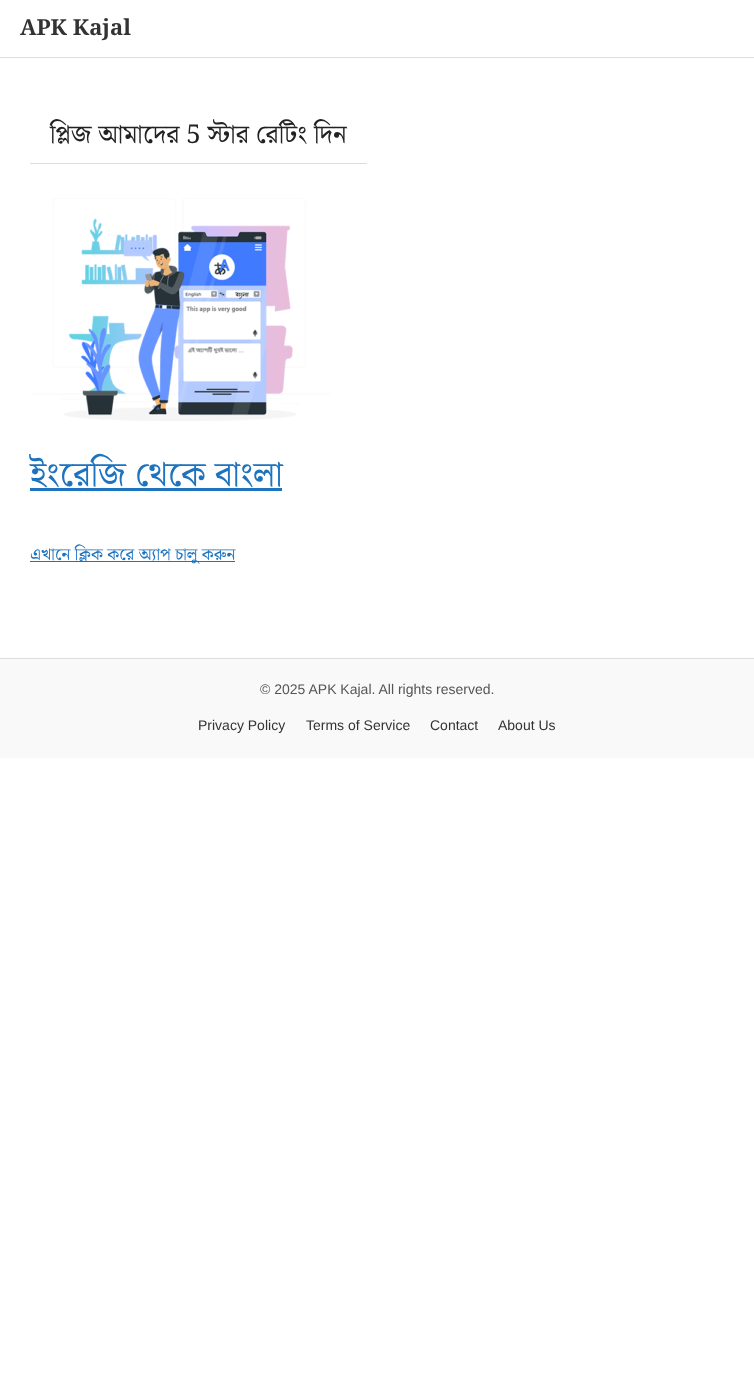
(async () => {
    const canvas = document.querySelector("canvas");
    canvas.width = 754;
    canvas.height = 1399;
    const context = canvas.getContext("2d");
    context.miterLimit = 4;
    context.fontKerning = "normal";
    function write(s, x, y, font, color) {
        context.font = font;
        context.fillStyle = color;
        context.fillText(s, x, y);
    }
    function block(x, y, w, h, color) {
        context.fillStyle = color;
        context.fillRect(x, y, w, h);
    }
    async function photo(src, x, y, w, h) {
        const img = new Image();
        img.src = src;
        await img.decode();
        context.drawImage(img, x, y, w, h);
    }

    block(0, 0, 754, 1399, "rgb(255, 255, 255)");
    block(0, 57, 754, 1, "rgb(221, 221, 221)");
    write("APK Kajal", 20, 35, "bold 22px Noto Serif Bengali", "rgb(51, 51, 51)");
    block(30, 163, 337, 1, "rgb(221, 221, 221)");
    write("প্লিজ আমাদের 5 স্টার রেটিং দিন", 50, 143, "26px Noto Serif Bengali", "rgb(34, 34, 34)");
    await photo("media/1.png", 31, 198, 299, 223);
    write("ইংরেজি থেকে বাংলা", 30, 486, "35px Noto Serif Bengali", "rgb(30, 115, 190)");
    block(30, 488, 252, 3, "rgb(30, 115, 190)");
    block(30, 561, 205, 1, "rgb(30, 115, 190)");
    write("এখানে ক্লিক করে অ্যাপ চালু করুন", 30, 560, "17px Noto Serif Bengali", "rgb(30, 115, 190)");
    block(0, 659, 754, 99, "rgb(249, 249, 249)");
    block(0, 658, 754, 1, "rgb(221, 221, 221)");
    write("© 2025 APK Kajal. All rights reserved.", 260, 694, "14px Liberation Sans", "rgb(85, 85, 85)");
    write("Privacy Policy", 198, 730, "14px Liberation Sans", "rgb(51, 51, 51)");
    write("Terms of Service", 306, 730, "14px Liberation Sans", "rgb(51, 51, 51)");
    write("Contact", 430, 730, "14px Liberation Sans", "rgb(51, 51, 51)");
    write("About Us", 498, 730, "14px Liberation Sans", "rgb(51, 51, 51)");
})();
